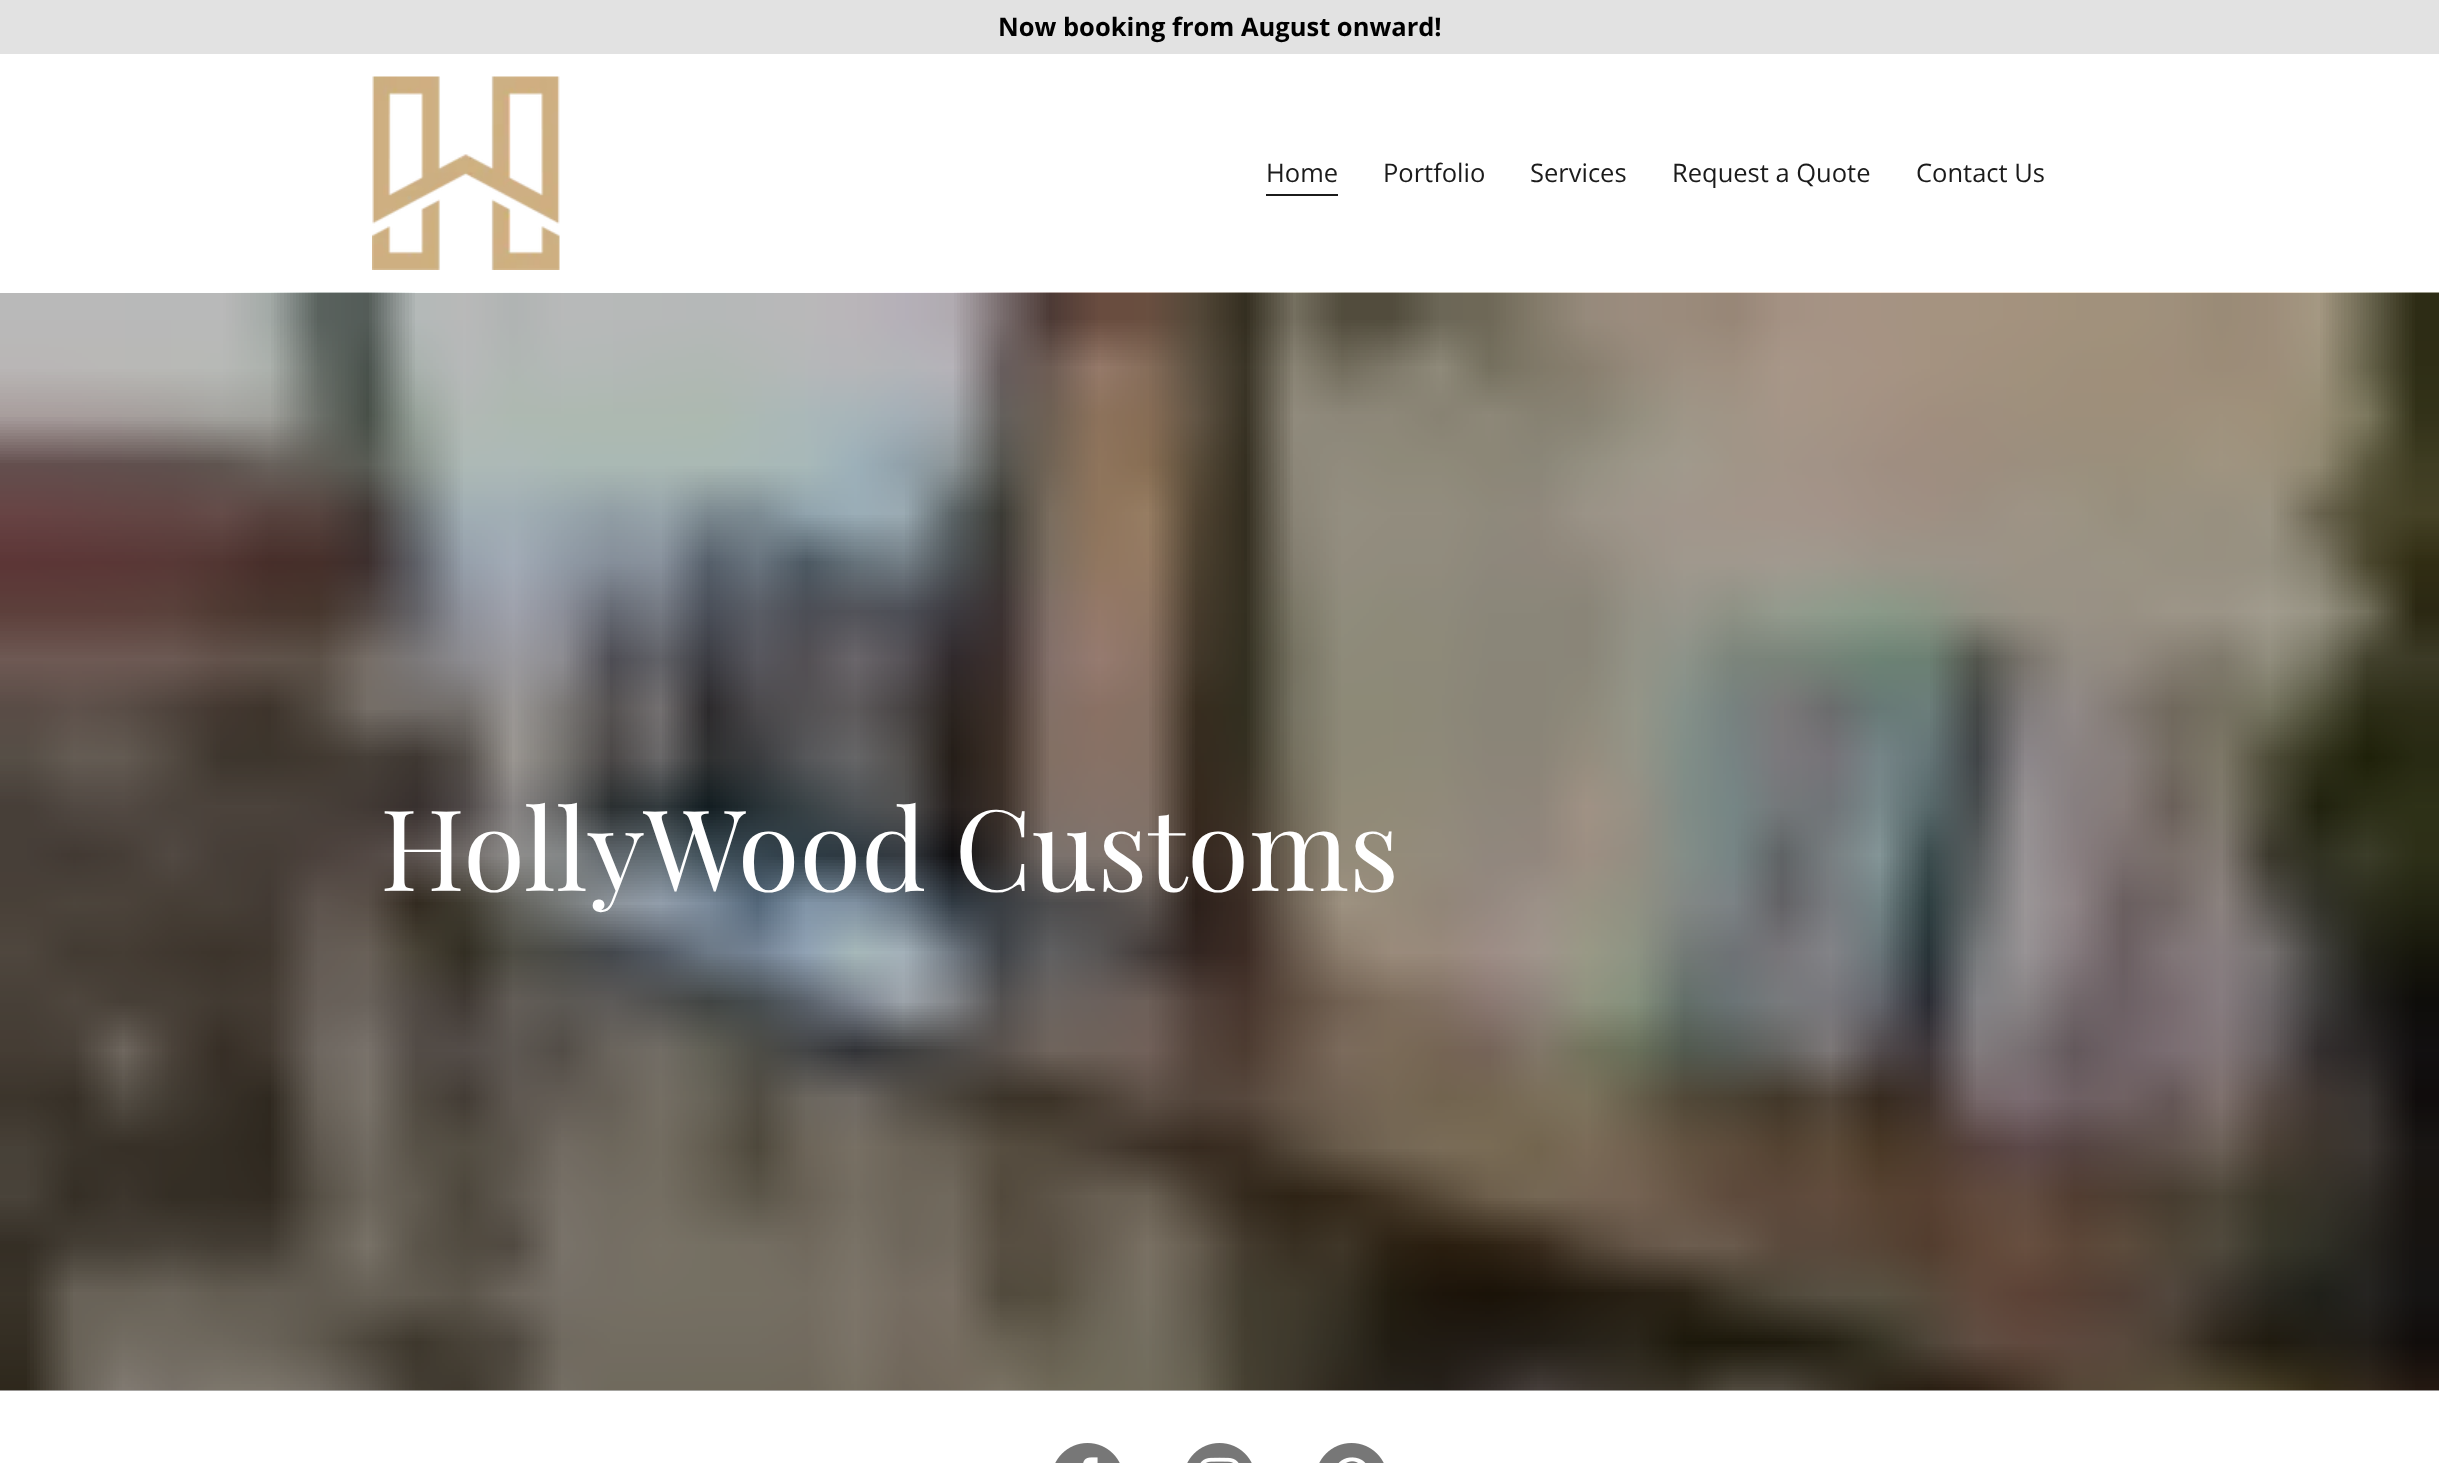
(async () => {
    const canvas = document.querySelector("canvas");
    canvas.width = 2439;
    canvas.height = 1463;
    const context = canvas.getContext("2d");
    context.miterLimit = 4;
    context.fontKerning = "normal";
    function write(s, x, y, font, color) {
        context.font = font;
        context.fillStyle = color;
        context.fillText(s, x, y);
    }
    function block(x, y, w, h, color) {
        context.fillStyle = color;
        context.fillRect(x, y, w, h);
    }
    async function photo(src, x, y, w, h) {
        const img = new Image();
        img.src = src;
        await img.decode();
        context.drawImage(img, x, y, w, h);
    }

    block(0, 0, 2439, 1463, "rgb(255, 255, 255)");
    block(0, 1390, 2439, 1, "rgb(185, 185, 185)");
    block(0, 0, 2439, 54, "rgb(226, 226, 226)");
    write("Now booking from August onward!", 998, 36, "bold 25.5px Open Sans", "rgb(0, 0, 0)");
    await photo("media/1.png", 372, 76, 188, 194);
    write("Home", 1266, 182, "25.5px Open Sans", "rgb(27, 27, 27)");
    block(1266, 194, 72, 2, "rgb(27, 27, 27)");
    write("Portfolio", 1383, 182, "25.5px Open Sans", "rgb(27, 27, 27)");
    write("Services", 1530, 182, "25.5px Open Sans", "rgb(27, 27, 27)");
    write("Request a Quote", 1672, 182, "25.5px Open Sans", "rgb(27, 27, 27)");
    write("Contact Us", 1916, 182, "25.5px Open Sans", "rgb(27, 27, 27)");
    await photo("media/2.png", 0, 292, 2439, 1099);
    write("HollyWood Customs", 380, 891, "112.5px Playfair Display", "rgb(255, 255, 255)");
    await photo("media/3.png", 1055, 1443, 65, 20);
    await photo("media/4.png", 1187, 1443, 65, 20);
    await photo("media/5.png", 1319, 1443, 65, 20);
})();
